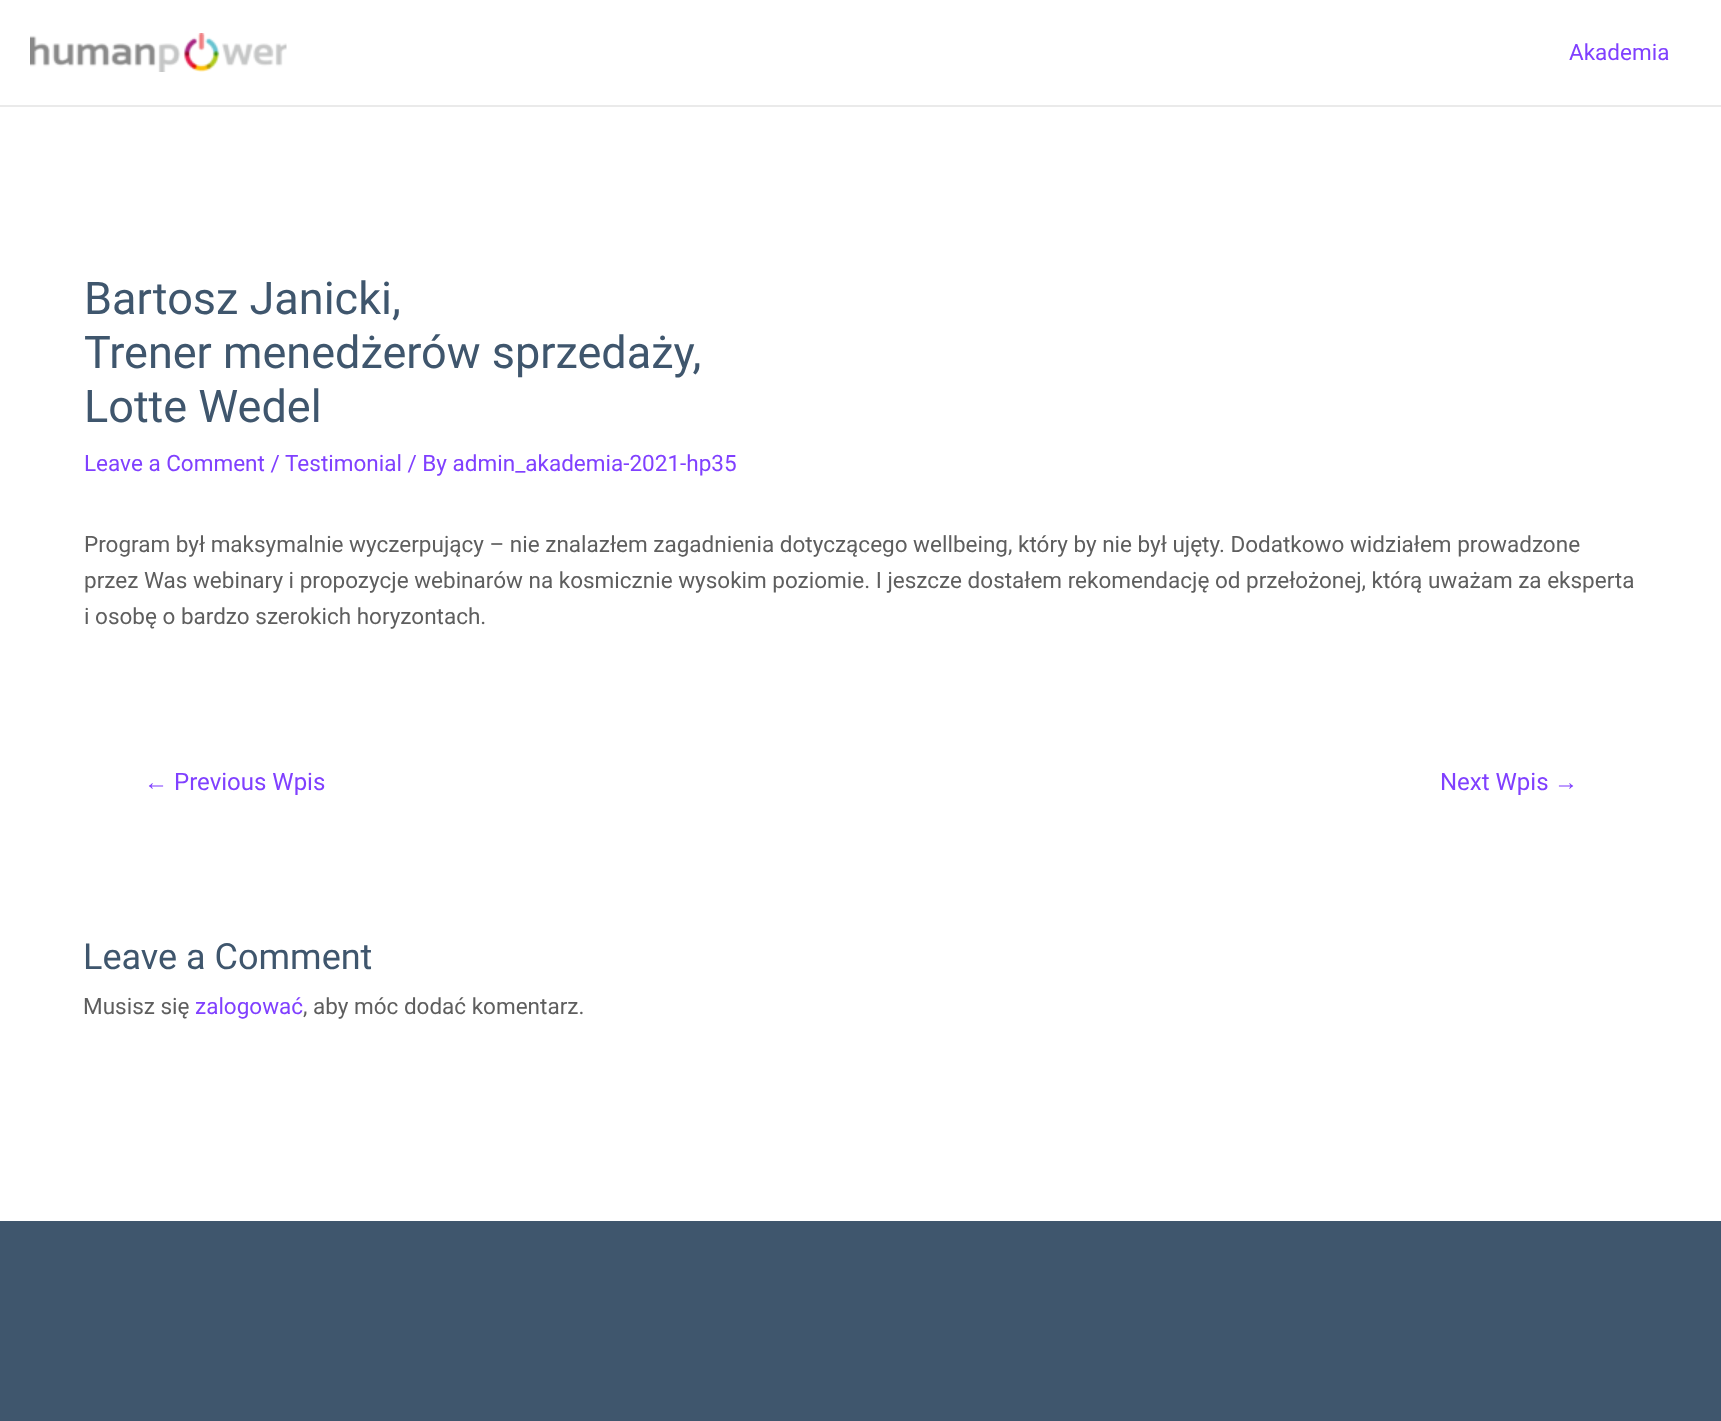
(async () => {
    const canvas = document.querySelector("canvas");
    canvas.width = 1721;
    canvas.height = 1421;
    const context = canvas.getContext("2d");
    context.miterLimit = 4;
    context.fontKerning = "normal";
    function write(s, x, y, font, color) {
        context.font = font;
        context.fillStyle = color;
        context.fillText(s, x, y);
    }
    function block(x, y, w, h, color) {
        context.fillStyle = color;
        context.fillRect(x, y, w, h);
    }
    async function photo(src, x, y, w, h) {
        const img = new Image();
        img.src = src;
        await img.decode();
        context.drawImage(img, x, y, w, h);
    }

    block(0, 0, 1721, 1421, "rgb(63, 86, 109)");
    block(0, 0, 1721, 1221, "rgb(255, 255, 255)");
    block(0, 105, 1721, 2, "rgb(234, 234, 234)");
    await photo("media/1.png", 30, 33, 257, 39);
    write("Akademia", 1569, 60, "22.5px Roboto", "rgb(128, 64, 255)");
    write("Bartosz Janicki,", 84, 314, "45px Roboto", "rgb(63, 86, 109)");
    write("Trener menedżerów sprzedaży,", 84, 368, "45px Roboto", "rgb(63, 86, 109)");
    write("Lotte Wedel", 84, 422, "45px Roboto", "rgb(63, 86, 109)");
    write("Leave a Comment /", 84, 471, "22.5px Roboto", "rgb(128, 64, 255)");
    write("Testimonial / By admin_akademia-2021-hp35", 285, 471, "22.5px Roboto", "rgb(128, 64, 255)");
    write("Program był maksymalnie wyczerpujący – nie znalazłem zagadnienia dotyczącego wellbeing, który by nie był ujęty. Dodatkowo widziałem prowadzone", 84, 552, "22.5px Roboto", "rgb(94, 94, 94)");
    write("przez Was webinary i propozycje webinarów na kosmicznie wysokim poziomie. I jeszcze dostałem rekomendację od przełożonej, którą uważam za eksperta", 84, 588, "22.5px Roboto", "rgb(94, 94, 94)");
    write("i osobę o bardzo szerokich horyzontach.", 84, 624, "22.5px Roboto", "rgb(94, 94, 94)");
    write("←", 144, 790, "24px Liberation Sans", "rgb(128, 64, 255)");
    write("Previous Wpis", 174, 790, "24px Roboto", "rgb(128, 64, 255)");
    write("Next Wpis", 1440, 790, "24px Roboto", "rgb(128, 64, 255)");
    write("→", 1554, 790, "24px Liberation Sans", "rgb(128, 64, 255)");
    write("Leave a Comment", 83, 969, "36px Roboto", "rgb(63, 86, 109)");
    write("Musisz się", 83, 1014, "22.5px Roboto", "rgb(94, 94, 94)");
    write("zalogować", 195, 1014, "22.5px Roboto", "rgb(128, 64, 255)");
    write(", aby móc dodać komentarz.", 303, 1014, "22.5px Roboto", "rgb(94, 94, 94)");
})();
